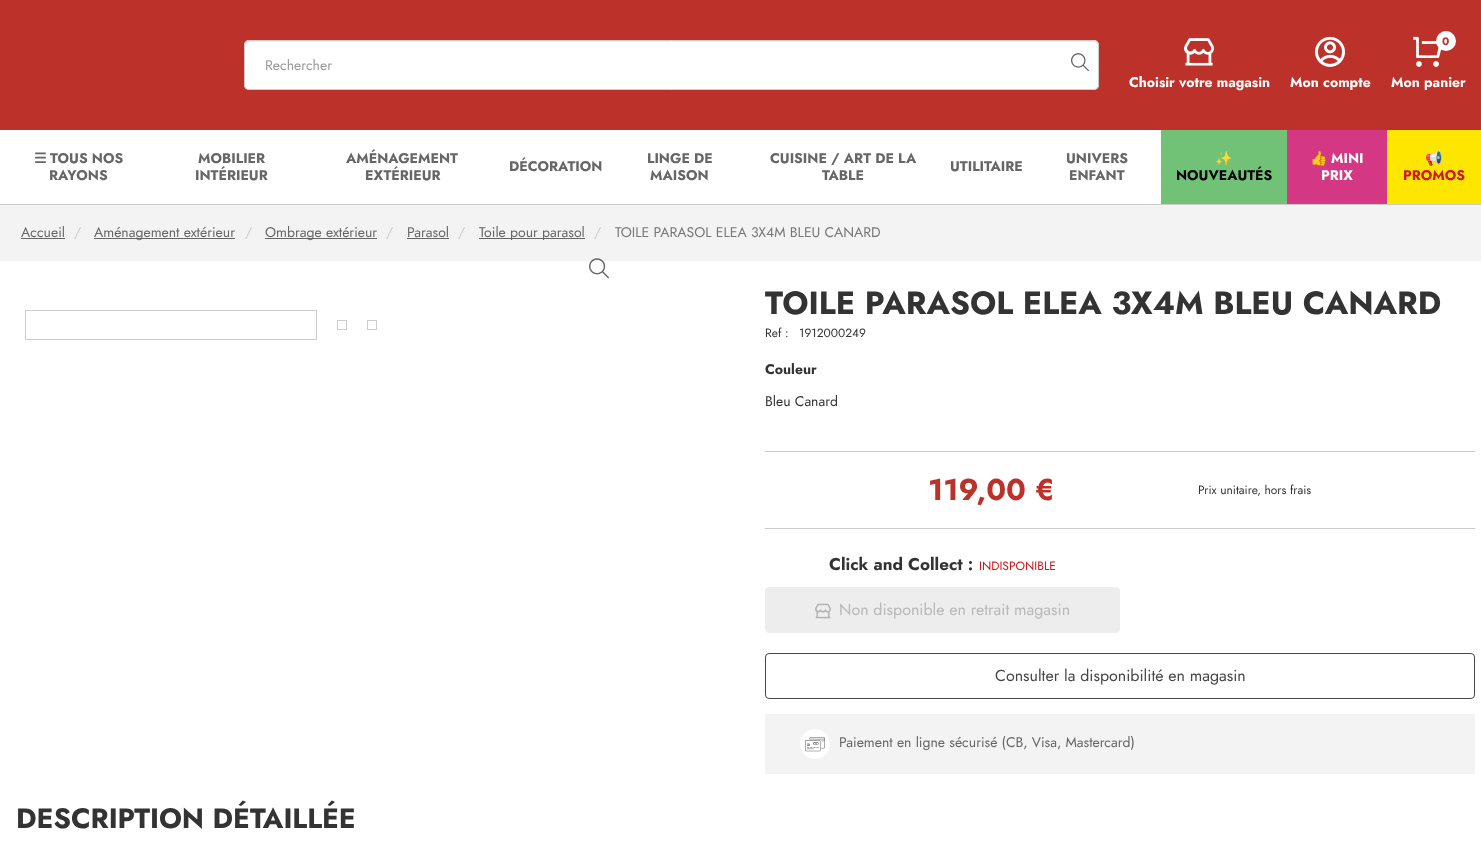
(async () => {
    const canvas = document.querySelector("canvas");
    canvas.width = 1481;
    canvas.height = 851;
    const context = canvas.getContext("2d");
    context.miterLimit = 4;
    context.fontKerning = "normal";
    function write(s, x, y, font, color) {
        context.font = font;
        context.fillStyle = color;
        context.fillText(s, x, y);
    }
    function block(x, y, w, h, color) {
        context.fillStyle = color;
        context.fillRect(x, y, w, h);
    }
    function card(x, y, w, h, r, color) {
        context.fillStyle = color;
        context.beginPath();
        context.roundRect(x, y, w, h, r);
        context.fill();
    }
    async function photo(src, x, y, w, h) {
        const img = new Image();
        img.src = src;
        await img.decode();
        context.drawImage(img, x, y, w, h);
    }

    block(0, 0, 1481, 851, "rgb(255, 255, 255)");
    block(0, 0, 1481, 130, "rgb(188, 49, 42)");
    card(244, 40, 855, 50, 5, "rgb(255, 255, 255)");
    context.fillStyle = "rgb(236, 236, 236)";
    context.beginPath();
    context.moveTo(249, 42);
    context.lineTo(1094, 42);
    context.bezierCurveTo(1096, 42, 1098, 44, 1098, 46);
    context.bezierCurveTo(1098, 43, 1097, 41, 1094, 41);
    context.lineTo(249, 41);
    context.bezierCurveTo(246, 41, 245, 43, 245, 46);
    context.bezierCurveTo(245, 44, 247, 42, 249, 42);
    context.closePath();
    context.fill();
    context.beginPath();
    context.roundRect(244.5, 40.5, 854, 49, 4.5);
    context.strokeStyle = "rgb(204, 204, 204)";
    context.stroke();
    write("Rechercher", 265, 70, "14px Jost", "rgb(153, 153, 153)");
    await photo("media/1.png", 1071, 53, 18, 19);
    await photo("media/2.png", 1184, 38, 30, 28);
    write("Choisir votre magasin", 1129, 87, "bold 14px Jost", "rgb(255, 255, 255)");
    await photo("media/3.png", 1315, 36, 30, 31);
    write("Mon compte", 1290, 87, "bold 14px Jost", "rgb(255, 255, 255)");
    await photo("media/4.png", 1413, 36, 29, 31);
    context.beginPath();
    context.arc(1446, 41, 10, 0, Math.PI * 2);
    context.fill();
    write("0", 1442, 45, "bold 11px Jost", "rgb(188, 49, 42)");
    write("Mon panier", 1391, 87, "bold 14px Jost", "rgb(255, 255, 255)");
    block(0, 204, 1481, 1, "rgb(204, 204, 204)");
    write("☰", 34, 163, "bold 14px DejaVu Sans", "rgb(102, 102, 102)");
    write("TOUS NOS", 50, 163, "bold 14px Jost", "rgb(102, 102, 102)");
    write("RAYONS", 49, 180, "bold 14px Jost", "rgb(102, 102, 102)");
    write("MOBILIER", 198, 163, "bold 14px Jost", "rgb(102, 102, 102)");
    write("INTÉRIEUR", 195, 180, "bold 14px Jost", "rgb(102, 102, 102)");
    write("AMÉNAGEMENT", 346, 163, "bold 14px Jost", "rgb(102, 102, 102)");
    write("EXTÉRIEUR", 365, 180, "bold 14px Jost", "rgb(102, 102, 102)");
    write("DÉCORATION", 509, 171, "bold 14px Jost", "rgb(102, 102, 102)");
    write("LINGE DE", 647, 163, "bold 14px Jost", "rgb(102, 102, 102)");
    write("MAISON", 650, 180, "bold 14px Jost", "rgb(102, 102, 102)");
    write("CUISINE / ART DE LA", 770, 163, "bold 14px Jost", "rgb(102, 102, 102)");
    write("TABLE", 822, 180, "bold 14px Jost", "rgb(102, 102, 102)");
    write("UTILITAIRE", 950, 171, "bold 14px Jost", "rgb(102, 102, 102)");
    write("UNIVERS", 1066, 163, "bold 14px Jost", "rgb(102, 102, 102)");
    write("ENFANT", 1069, 180, "bold 14px Jost", "rgb(102, 102, 102)");
    block(1161, 130, 126, 74, "rgb(113, 194, 119)");
    write("✨", 1215, 163, "bold 14px Noto Color Emoji", "rgb(0, 0, 0)");
    write("NOUVEAUTÉS", 1176, 180, "bold 14px Jost", "rgb(0, 0, 0)");
    block(1287, 130, 100, 74, "rgb(212, 55, 131)");
    write("👍", 1310, 163, "bold 14px Noto Color Emoji", "rgb(255, 255, 255)");
    write("MINI", 1331, 163, "bold 14px Jost", "rgb(255, 255, 255)");
    write("PRIX", 1321, 180, "bold 14px Jost", "rgb(255, 255, 255)");
    block(1387, 130, 94, 74, "rgb(255, 230, 0)");
    write("📢", 1425, 163, "bold 14px Noto Color Emoji", "rgb(205, 23, 25)");
    write("PROMOS", 1403, 180, "bold 14px Jost", "rgb(205, 23, 25)");
    block(0, 205, 1481, 56, "rgb(243, 243, 243)");
    write("Accueil", 21, 237, "14px Jost", "rgb(102, 102, 102)");
    block(21, 238, 44, 1, "rgb(102, 102, 102)");
    write("/", 74, 237, "14px Jost", "rgb(204, 204, 204)");
    block(94, 238, 141, 1, "rgb(102, 102, 102)");
    write("Aménagement extérieur", 94, 237, "14px Jost", "rgb(102, 102, 102)");
    write("/", 245, 237, "14px Jost", "rgb(204, 204, 204)");
    block(265, 238, 112, 1, "rgb(102, 102, 102)");
    write("Ombrage extérieur", 265, 237, "14px Jost", "rgb(102, 102, 102)");
    write("/", 386, 237, "14px Jost", "rgb(204, 204, 204)");
    write("Parasol", 407, 237, "14px Jost", "rgb(102, 102, 102)");
    block(407, 238, 42, 1, "rgb(102, 102, 102)");
    write("/", 458, 237, "14px Jost", "rgb(204, 204, 204)");
    block(479, 238, 106, 1, "rgb(102, 102, 102)");
    write("Toile pour parasol", 479, 237, "14px Jost", "rgb(102, 102, 102)");
    write("/", 594, 237, "14px Jost", "rgb(204, 204, 204)");
    write("TOILE PARASOL ELEA 3X4M BLEU CANARD", 615, 237, "14px Jost", "rgb(119, 119, 119)");
    await photo("media/5.png", 589, 258, 20, 21);
    context.strokeRect(25.5, 310.5, 291, 29);
    context.strokeRect(337.5, 320.5, 9, 9);
    context.strokeRect(367.5, 320.5, 9, 9);
    write("TOILE PARASOL ELEA 3X4M BLEU CANARD", 765, 314, "bold 32px Jost", "rgb(51, 51, 51)");
    write("Ref :", 765, 337, "12px Jost", "rgb(51, 51, 51)");
    write("1912000249", 799, 337, "12px Jost", "rgb(51, 51, 51)");
    write("Couleur", 765, 374, "bold 14px Jost", "rgb(51, 51, 51)");
    write("Bleu Canard", 765, 406, "14px Jost", "rgb(51, 51, 51)");
    block(765, 451, 710, 1, "rgb(204, 204, 204)");
    block(765, 528, 710, 1, "rgb(204, 204, 204)");
    write("119,00 €", 928, 500, "bold 30px Jost", "rgb(188, 49, 42)");
    write("Prix unitaire, hors frais", 1198, 494, "12px Jost", "rgb(51, 51, 51)");
    write("Click and Collect :", 829, 570, "bold 17px Jost", "rgb(51, 51, 51)");
    write("INDISPONIBLE", 979, 570, "12px Jost", "rgb(205, 23, 25)");
    context.fillStyle = "rgb(237, 237, 237)";
    context.beginPath();
    context.roundRect(765.5, 587.5, 354, 45, 3.5);
    context.fill();
    context.strokeStyle = "rgb(237, 237, 237)";
    context.stroke();
    await photo("media/6.png", 815, 603, 16, 16);
    write("Non disponible en retrait magasin", 839, 615, "16px Jost", "rgb(184, 184, 184)");
    context.beginPath();
    context.roundRect(765.5, 653.5, 709, 45, 3.5);
    context.strokeStyle = "rgb(70, 70, 70)";
    context.stroke();
    write("Consulter la disponibilité en magasin", 995, 681, "16px Jost", "rgb(70, 70, 70)");
    block(765, 714, 710, 60, "rgb(243, 243, 243)");
    context.fillStyle = "rgb(255, 255, 255)";
    context.beginPath();
    context.arc(815, 744, 15, 0, Math.PI * 2);
    context.fill();
    write("Paiement en ligne sécurisé (CB, Visa, Mastercard)", 839, 747, "14px Jost", "rgb(102, 102, 102)");
    await photo("media/7.png", 805, 737, 20, 15);
    write("DESCRIPTION DÉTAILLÉE", 16, 828, "bold 28px Jost", "rgb(51, 51, 51)");
})();
